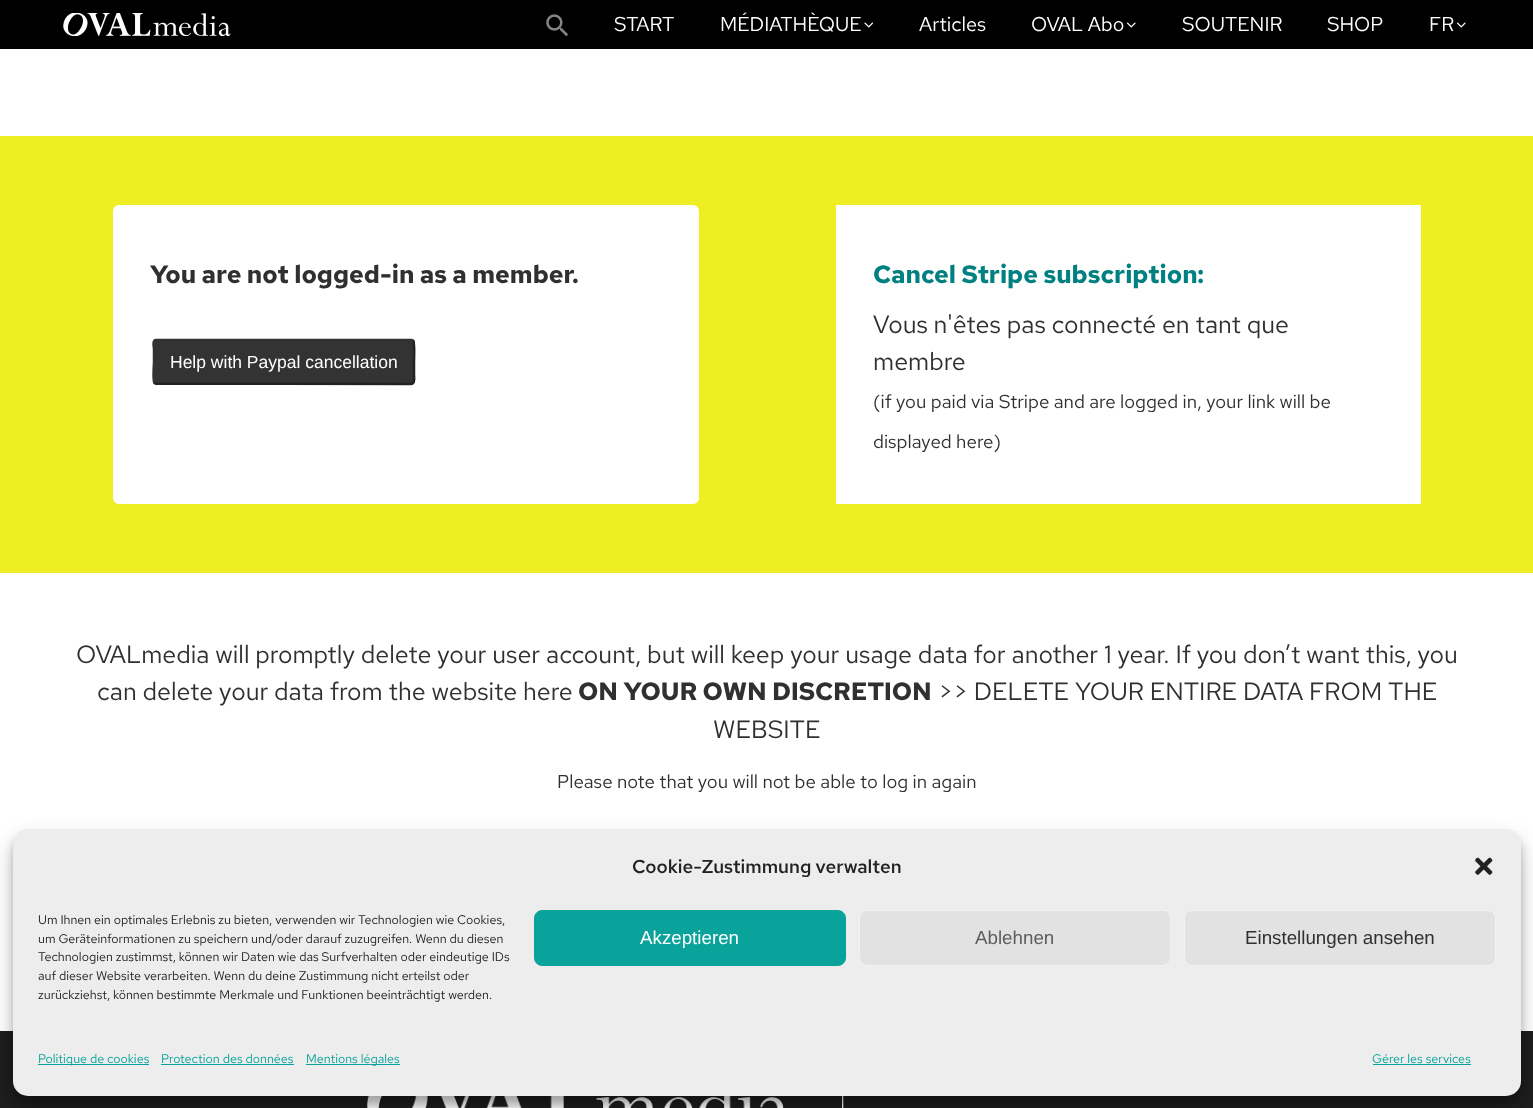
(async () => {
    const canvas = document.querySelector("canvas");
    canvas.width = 1533;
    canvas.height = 1108;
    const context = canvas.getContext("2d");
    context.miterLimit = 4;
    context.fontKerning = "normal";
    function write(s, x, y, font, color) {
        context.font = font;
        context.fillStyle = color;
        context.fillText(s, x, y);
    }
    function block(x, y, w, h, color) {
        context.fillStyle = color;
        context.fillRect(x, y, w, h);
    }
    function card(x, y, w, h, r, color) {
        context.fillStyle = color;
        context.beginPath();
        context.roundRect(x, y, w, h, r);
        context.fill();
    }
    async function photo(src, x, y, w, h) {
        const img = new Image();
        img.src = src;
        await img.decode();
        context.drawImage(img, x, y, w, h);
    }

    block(0, 0, 1533, 1108, "rgb(255, 255, 255)");
    block(0, 0, 1533, 49, "rgb(0, 0, 0)");
    await photo("media/1.png", 63, 13, 168, 23);
    await photo("media/2.png", 546, 14, 22, 23);
    write("START", 614, 31, "20px Red Hat Text", "rgb(255, 255, 255)");
    write("MÉDIATHÈQUE", 720, 31, "20px Red Hat Text", "rgb(255, 255, 255)");
    await photo("media/3.png", 864, 22, 10, 6);
    write("Articles", 919, 31, "20px Red Hat Text", "rgb(255, 255, 255)");
    write("OVAL Abo", 1031, 31, "20px Red Hat Text", "rgb(255, 255, 255)");
    await photo("media/4.png", 1126, 22, 10, 6);
    write("SOUTENIR", 1182, 31, "20px Red Hat Text", "rgb(255, 255, 255)");
    write("SHOP", 1327, 31, "20px Red Hat Text", "rgb(255, 255, 255)");
    write("FR", 1429, 31, "20px Red Hat Text", "rgb(255, 255, 255)");
    await photo("media/4.png", 1456, 22, 10, 6);
    block(0, 136, 1533, 437, "rgb(238, 238, 34)");
    card(113, 205, 586, 299, 6, "rgb(255, 255, 255)");
    write("You are not logged-in as a member.", 150, 283, "bold 25px Red Hat Text", "rgb(48, 48, 48)");
    card(153, 339, 262, 46, 4, "rgb(51, 51, 51)");
    context.beginPath();
    context.moveTo(413, 340.5);
    context.bezierCurveTo(415, 342.5, 414, 358.5, 414, 362);
    context.lineTo(414, 375);
    context.bezierCurveTo(414, 376, 415.5, 383.5, 411, 384);
    context.lineTo(156, 383.5);
    context.lineTo(154.5, 383);
    context.strokeStyle = "rgb(34, 34, 34)";
    context.lineWidth = 2.5;
    context.stroke();
    context.beginPath();
    context.moveTo(154.5, 383);
    context.bezierCurveTo(152.5, 381, 154, 365, 154, 362);
    context.lineTo(154, 349);
    context.bezierCurveTo(154, 347.5, 152, 340, 156, 340);
    context.lineTo(411.5, 340);
    context.lineTo(413, 340.5);
    context.strokeStyle = "rgb(51, 51, 51)";
    context.stroke();
    write("Help with Paypal cancellation", 170, 368, "17.5px Liberation Sans", "rgb(255, 255, 255)");
    block(836, 205, 585, 299, "rgb(255, 255, 255)");
    write("Cancel Stripe subscription:", 873, 283, "bold 25px Red Hat Text", "rgb(0, 128, 128)");
    write("Vous n'êtes pas connecté en tant que", 873, 333, "25px Red Hat Text", "rgb(48, 48, 48)");
    write("membre", 873, 370, "25px Red Hat Text", "rgb(48, 48, 48)");
    write("(if you paid via Stripe and are logged in, your link will be", 873, 408, "18.75px Red Hat Text", "rgb(48, 48, 48)");
    write("displayed here)", 873, 448, "18.75px Red Hat Text", "rgb(48, 48, 48)");
    write("OVALmedia will promptly delete your user account, but will keep your usage data for another 1 year. If you don’t want this, you", 76, 663, "25px Red Hat Text", "rgb(48, 48, 48)");
    write("can delete your data from the website here", 97, 700, "25px Red Hat Text", "rgb(48, 48, 48)");
    write("ON YOUR OWN DISCRETION", 578, 700, "bold 25px Red Hat Text", "rgb(48, 48, 48)");
    write(">> DELETE YOUR ENTIRE DATA FROM THE", 938, 700, "25px Red Hat Text", "rgb(48, 48, 48)");
    write("WEBSITE", 713, 738, "25px Red Hat Text", "rgb(48, 48, 48)");
    write("Please note that you will not be able to log in again", 557, 788, "18.75px Red Hat Text", "rgb(48, 48, 48)");
    block(0, 1031, 1533, 77, "rgb(30, 30, 30)");
    await photo("media/5.png", 366, 1096, 478, 12);
    context.fillStyle = "rgba(0, 0, 0, 0.23)";
    context.filter = "blur(4px)";
    context.beginPath();
    context.roundRect(13, 836, 1508, 268, 15);
    context.fill();
    context.filter = "none";
    context.fillStyle = "rgba(0, 0, 0, 0.19)";
    context.filter = "blur(12.5px)";
    context.beginPath();
    context.roundRect(13, 841, 1508, 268, 15);
    context.fill();
    context.filter = "none";
    card(13, 829, 1508, 267, 15, "rgb(237, 237, 237)");
    write("Cookie-Zustimmung verwalten", 632, 873, "500 18.75px Red Hat Text", "rgb(34, 34, 34)");
    await photo("media/6.png", 1475, 857, 18, 18);
    write("Um Ihnen ein optimales Erlebnis zu bieten, verwenden wir Technologien wie Cookies,", 38, 924, "12.5px Red Hat Text", "rgb(34, 34, 34)");
    write("um Geräteinformationen zu speichern und/oder darauf zuzugreifen. Wenn du diesen", 38, 943, "12.5px Red Hat Text", "rgb(34, 34, 34)");
    write("Technologien zustimmst, können wir Daten wie das Surfverhalten oder eindeutige IDs", 38, 961, "12.5px Red Hat Text", "rgb(34, 34, 34)");
    write("auf dieser Website verarbeiten. Wenn du deine Zustimmung nicht erteilst oder", 38, 980, "12.5px Red Hat Text", "rgb(34, 34, 34)");
    write("zurückziehst, können bestimmte Merkmale und Funktionen beeinträchtigt werden.", 38, 999, "12.5px Red Hat Text", "rgb(34, 34, 34)");
    context.fillStyle = "rgb(10, 163, 155)";
    context.beginPath();
    context.roundRect(534.5, 910.5, 311, 55, 7.5);
    context.fill();
    context.strokeStyle = "rgb(10, 163, 155)";
    context.lineWidth = 1;
    context.stroke();
    write("Akzeptieren", 640, 944, "18.75px Liberation Sans", "rgb(255, 255, 255)");
    context.fillStyle = "rgb(226, 226, 226)";
    context.beginPath();
    context.roundRect(859.5, 910.5, 311, 55, 7.5);
    context.fill();
    context.strokeStyle = "rgb(242, 242, 242)";
    context.stroke();
    write("Ablehnen", 975, 944, "18.75px Liberation Sans", "rgb(94, 94, 94)");
    context.fillStyle = "rgb(226, 226, 226)";
    context.beginPath();
    context.roundRect(1184.5, 910.5, 311, 55, 7.5);
    context.fill();
    context.stroke();
    write("Einstellungen ansehen", 1245, 944, "18.75px Liberation Sans", "rgb(48, 48, 48)");
    block(38, 1064, 111, 1, "rgb(10, 163, 155)");
    write("Politique de cookies", 38, 1063, "12.5px Red Hat Text", "rgb(10, 163, 155)");
    write("Protection des données", 161, 1063, "12.5px Red Hat Text", "rgb(10, 163, 155)");
    block(161, 1064, 133, 1, "rgb(10, 163, 155)");
    block(306, 1064, 94, 1, "rgb(10, 163, 155)");
    write("Mentions légales", 306, 1063, "12.5px Red Hat Text", "rgb(10, 163, 155)");
    write("Gérer les services", 1372, 1063, "12.5px Red Hat Text", "rgb(10, 163, 155)");
    block(1373, 1064, 98, 1, "rgb(10, 163, 155)");
})();
